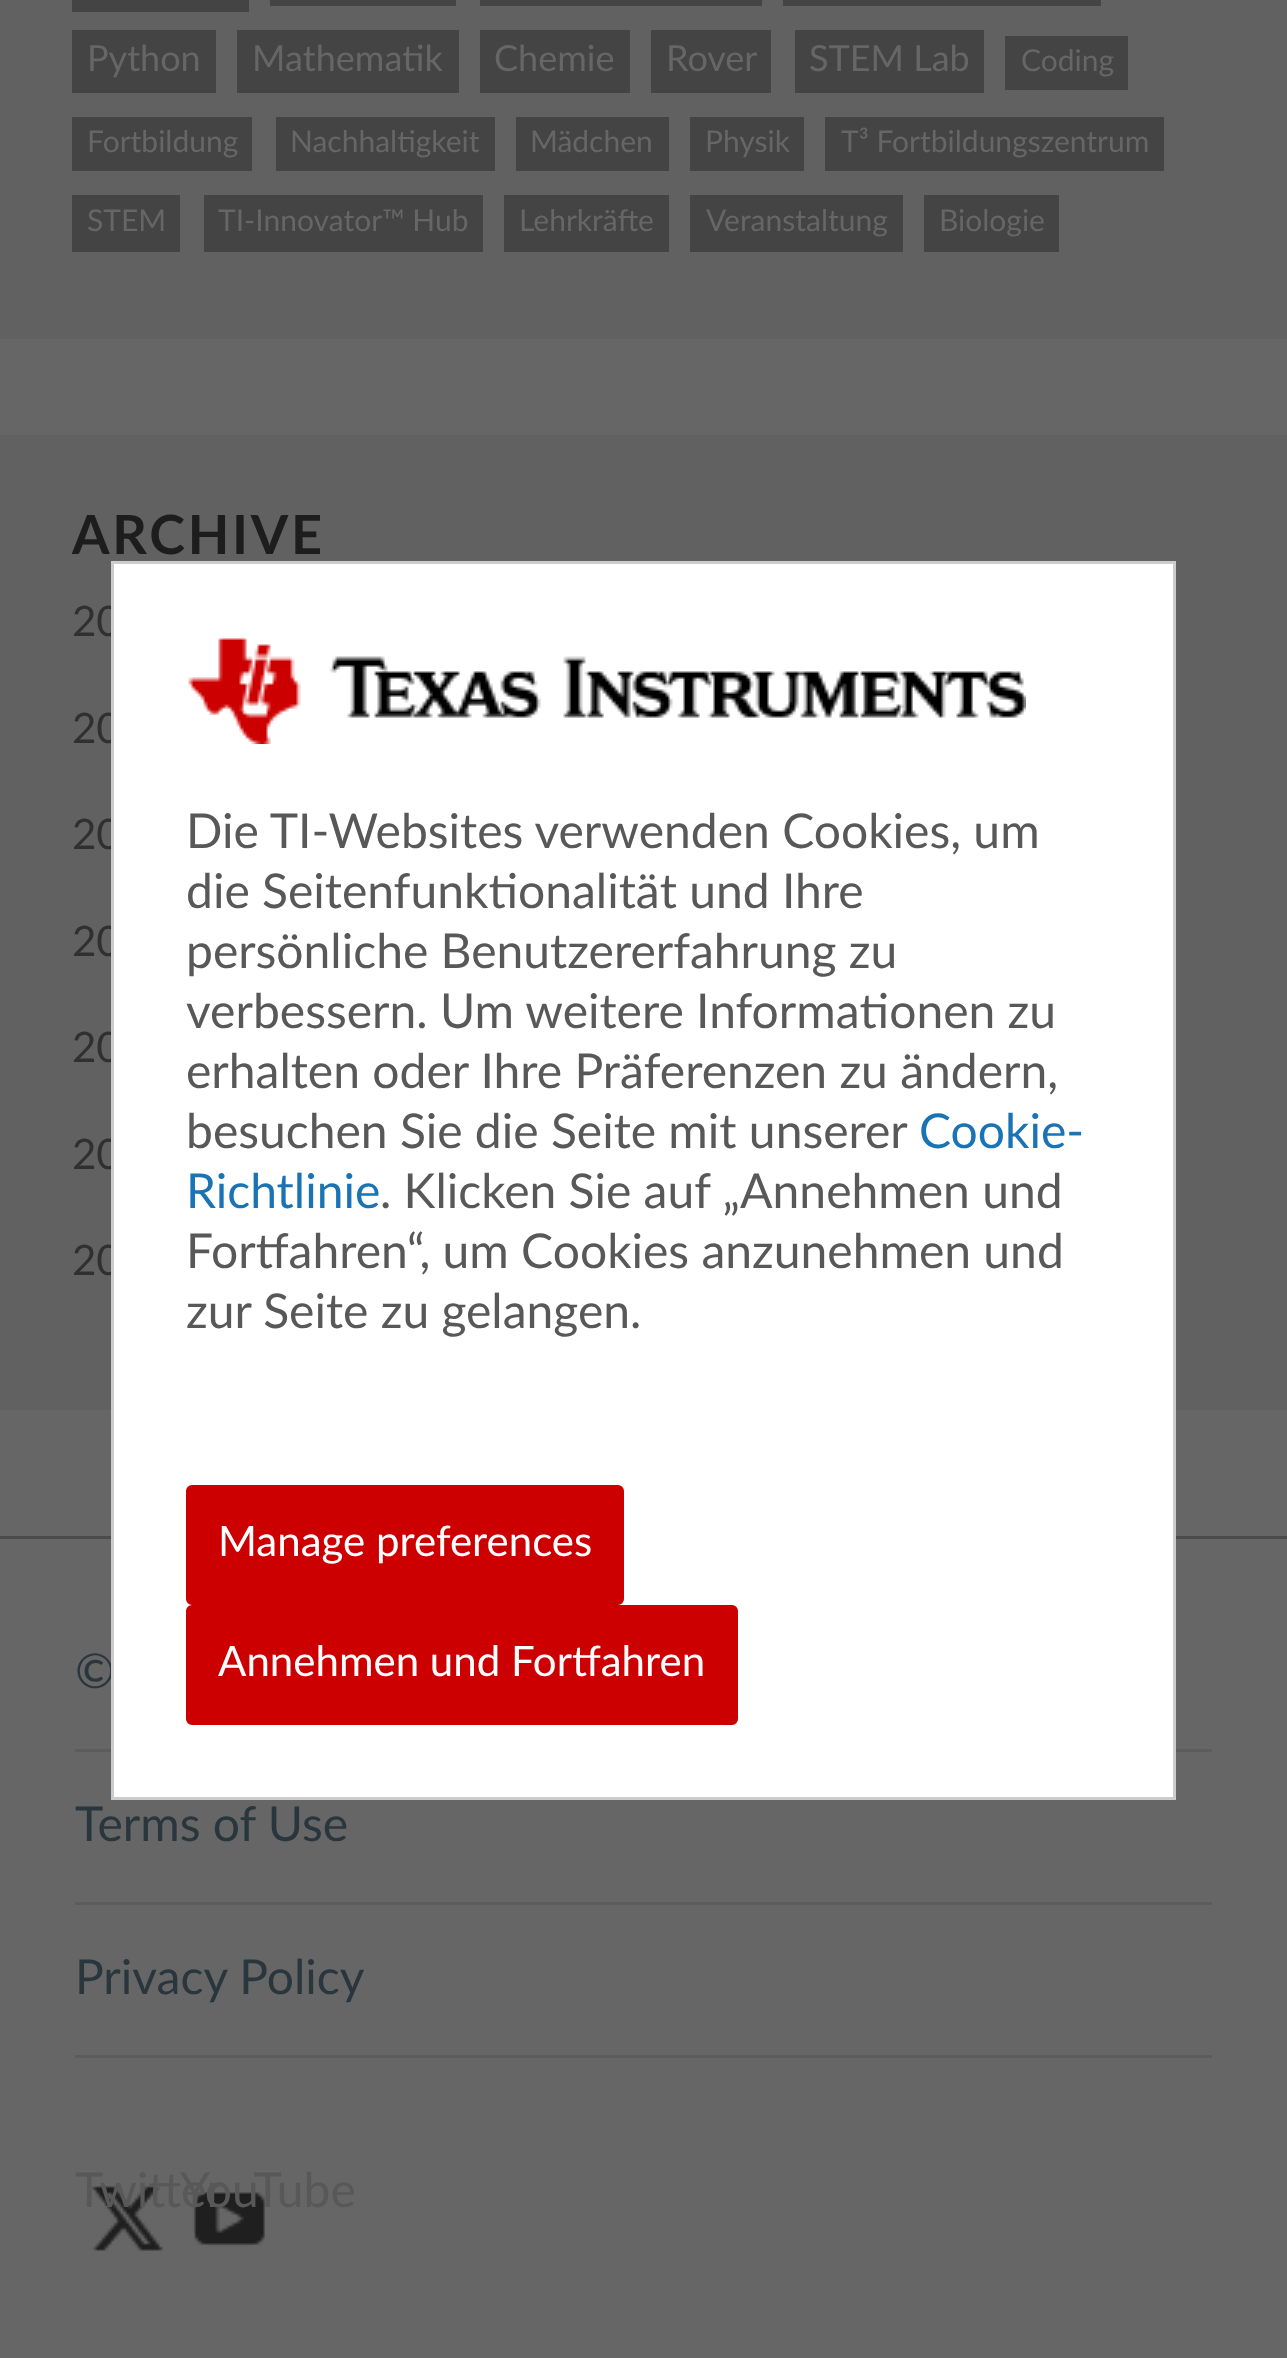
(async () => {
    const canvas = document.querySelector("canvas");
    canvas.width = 1287;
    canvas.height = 2358;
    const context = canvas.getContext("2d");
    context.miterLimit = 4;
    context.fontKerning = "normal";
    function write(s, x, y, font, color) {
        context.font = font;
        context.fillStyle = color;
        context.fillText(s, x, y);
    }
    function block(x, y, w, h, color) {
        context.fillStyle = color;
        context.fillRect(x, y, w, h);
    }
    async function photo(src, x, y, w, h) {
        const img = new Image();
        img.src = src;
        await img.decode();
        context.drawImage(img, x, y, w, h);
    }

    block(0, 0, 1287, 2358, "rgb(102, 102, 102)");
    block(0, 0, 1287, 339, "rgb(97, 97, 97)");
    block(72, 0, 177, 12, "rgb(68, 68, 68)");
    block(270, 0, 186, 6, "rgb(68, 68, 68)");
    block(480, 0, 282, 6, "rgb(68, 68, 68)");
    block(783, 0, 318, 6, "rgb(68, 68, 68)");
    block(72, 30, 144, 63, "rgb(68, 68, 68)");
    write("Python", 87, 71, "36px Lato", "rgb(102, 102, 102)");
    block(237, 30, 222, 63, "rgb(68, 68, 68)");
    write("Mathematik", 252, 71, "36px Lato", "rgb(102, 102, 102)");
    block(480, 30, 150, 63, "rgb(68, 68, 68)");
    write("Chemie", 494, 71, "36px Lato", "rgb(102, 102, 102)");
    block(651, 30, 120, 63, "rgb(68, 68, 68)");
    write("Rover", 666, 71, "36px Lato", "rgb(102, 102, 102)");
    block(795, 30, 189, 63, "rgb(68, 68, 68)");
    write("STEM Lab", 809, 71, "36px Lato", "rgb(102, 102, 102)");
    block(1005, 36, 123, 54, "rgb(68, 68, 68)");
    write("Coding", 1021, 71, "30px Lato", "rgb(102, 102, 102)");
    block(72, 117, 180, 54, "rgb(68, 68, 68)");
    write("Fortbildung", 87, 152, "30px Lato", "rgb(102, 102, 102)");
    block(276, 117, 219, 54, "rgb(68, 68, 68)");
    write("Nachhaltigkeit", 290, 152, "30px Lato", "rgb(102, 102, 102)");
    block(516, 117, 153, 54, "rgb(68, 68, 68)");
    write("Mädchen", 530, 152, "30px Lato", "rgb(102, 102, 102)");
    block(690, 117, 114, 54, "rgb(68, 68, 68)");
    write("Physik", 705, 152, "30px Lato", "rgb(102, 102, 102)");
    block(825, 117, 339, 54, "rgb(68, 68, 68)");
    write("T³ Fortbildungszentrum", 841, 152, "30px Lato", "rgb(102, 102, 102)");
    block(72, 195, 108, 57, "rgb(68, 68, 68)");
    write("STEM", 87, 231, "30px Lato", "rgb(102, 102, 102)");
    block(204, 195, 279, 57, "rgb(68, 68, 68)");
    write("TI-Innovator™ Hub", 218, 231, "30px Lato", "rgb(102, 102, 102)");
    block(504, 195, 165, 57, "rgb(68, 68, 68)");
    write("Lehrkräfte", 519, 231, "30px Lato", "rgb(102, 102, 102)");
    block(690, 195, 213, 57, "rgb(68, 68, 68)");
    write("Veranstaltung", 706, 231, "30px Lato", "rgb(102, 102, 102)");
    block(924, 195, 135, 57, "rgb(68, 68, 68)");
    write("Biologie", 939, 231, "30px Lato", "rgb(102, 102, 102)");
    block(0, 435, 1287, 975, "rgb(97, 97, 97)");
    context.letterSpacing = "2.75px";
    write("ARCHIVE", 72, 554, "bold 54px Lato", "rgb(29, 29, 29)");
    context.letterSpacing = "0px";
    write("20", 72, 636, "42px Lato", "rgb(48, 48, 48)");
    write("20", 72, 743, "42px Lato", "rgb(48, 48, 48)");
    write("20", 72, 849, "42px Lato", "rgb(48, 48, 48)");
    write("20", 72, 956, "42px Lato", "rgb(48, 48, 48)");
    write("20", 72, 1062, "42px Lato", "rgb(48, 48, 48)");
    write("20", 72, 1169, "42px Lato", "rgb(48, 48, 48)");
    write("20", 72, 1275, "42px Lato", "rgb(48, 48, 48)");
    block(0, 1536, 1287, 3, "rgb(75, 75, 75)");
    block(75, 1749, 1137, 3, "rgb(92, 92, 92)");
    write("©", 75, 1688, "48px Lato", "rgb(41, 54, 61)");
    context.fillStyle = "rgb(255, 255, 255)";
    context.beginPath();
    context.rect(112.5, 562.5, 1062, 1236);
    context.fill();
    context.strokeStyle = "rgb(204, 204, 204)";
    context.lineWidth = 3;
    context.stroke();
    await photo("media/1.png", 188, 638, 838, 106);
    write("Die TI-Websites verwenden Cookies, um", 186, 848, "48px Lato", "rgb(88, 88, 88)");
    write("die Seitenfunktionalität und Ihre", 186, 908, "48px Lato", "rgb(88, 88, 88)");
    write("persönliche Benutzererfahrung zu", 186, 968, "48px Lato", "rgb(88, 88, 88)");
    write("verbessern. Um weitere Informationen zu", 186, 1028, "48px Lato", "rgb(88, 88, 88)");
    write("erhalten oder Ihre Präferenzen zu ändern,", 186, 1088, "48px Lato", "rgb(88, 88, 88)");
    write("besuchen Sie die Seite mit unserer", 186, 1148, "48px Lato", "rgb(88, 88, 88)");
    write("Cookie-", 919, 1148, "48px Lato", "rgb(25, 115, 180)");
    write("Richtlinie", 186, 1208, "48px Lato", "rgb(25, 115, 180)");
    write(". Klicken Sie auf „Annehmen und", 380, 1208, "48px Lato", "rgb(88, 88, 88)");
    write("Fortfahren“, um Cookies anzunehmen und", 186, 1268, "48px Lato", "rgb(88, 88, 88)");
    write("zur Seite zu gelangen.", 186, 1328, "48px Lato", "rgb(88, 88, 88)");
    context.fillStyle = "rgb(204, 0, 0)";
    context.beginPath();
    context.roundRect(187.5, 1486.5, 435, 117, 4.5);
    context.fill();
    context.strokeStyle = "rgb(204, 0, 0)";
    context.stroke();
    write("Manage preferences", 218, 1556, "42px Lato", "rgb(255, 255, 255)");
    context.fillStyle = "rgb(204, 0, 0)";
    context.beginPath();
    context.roundRect(187.5, 1606.5, 549, 117, 4.5);
    context.fill();
    context.stroke();
    write("Annehmen und Fortfahren", 218, 1676, "42px Lato", "rgb(255, 255, 255)");
    block(75, 1902, 1137, 3, "rgb(92, 92, 92)");
    write("Terms of Use", 75, 1841, "48px Lato", "rgb(41, 54, 61)");
    block(75, 2055, 1137, 3, "rgb(92, 92, 92)");
    write("Privacy Policy", 75, 1994, "48px Lato", "rgb(41, 54, 61)");
    await photo("media/2.png", 92, 2186, 71, 65);
    await photo("media/3.png", 192, 2192, 73, 56);
    write("Twitter", 75, 2207, "48px Lato", "rgb(88, 88, 88)");
    write("YouTube", 180, 2207, "48px Lato", "rgb(88, 88, 88)");
})();
